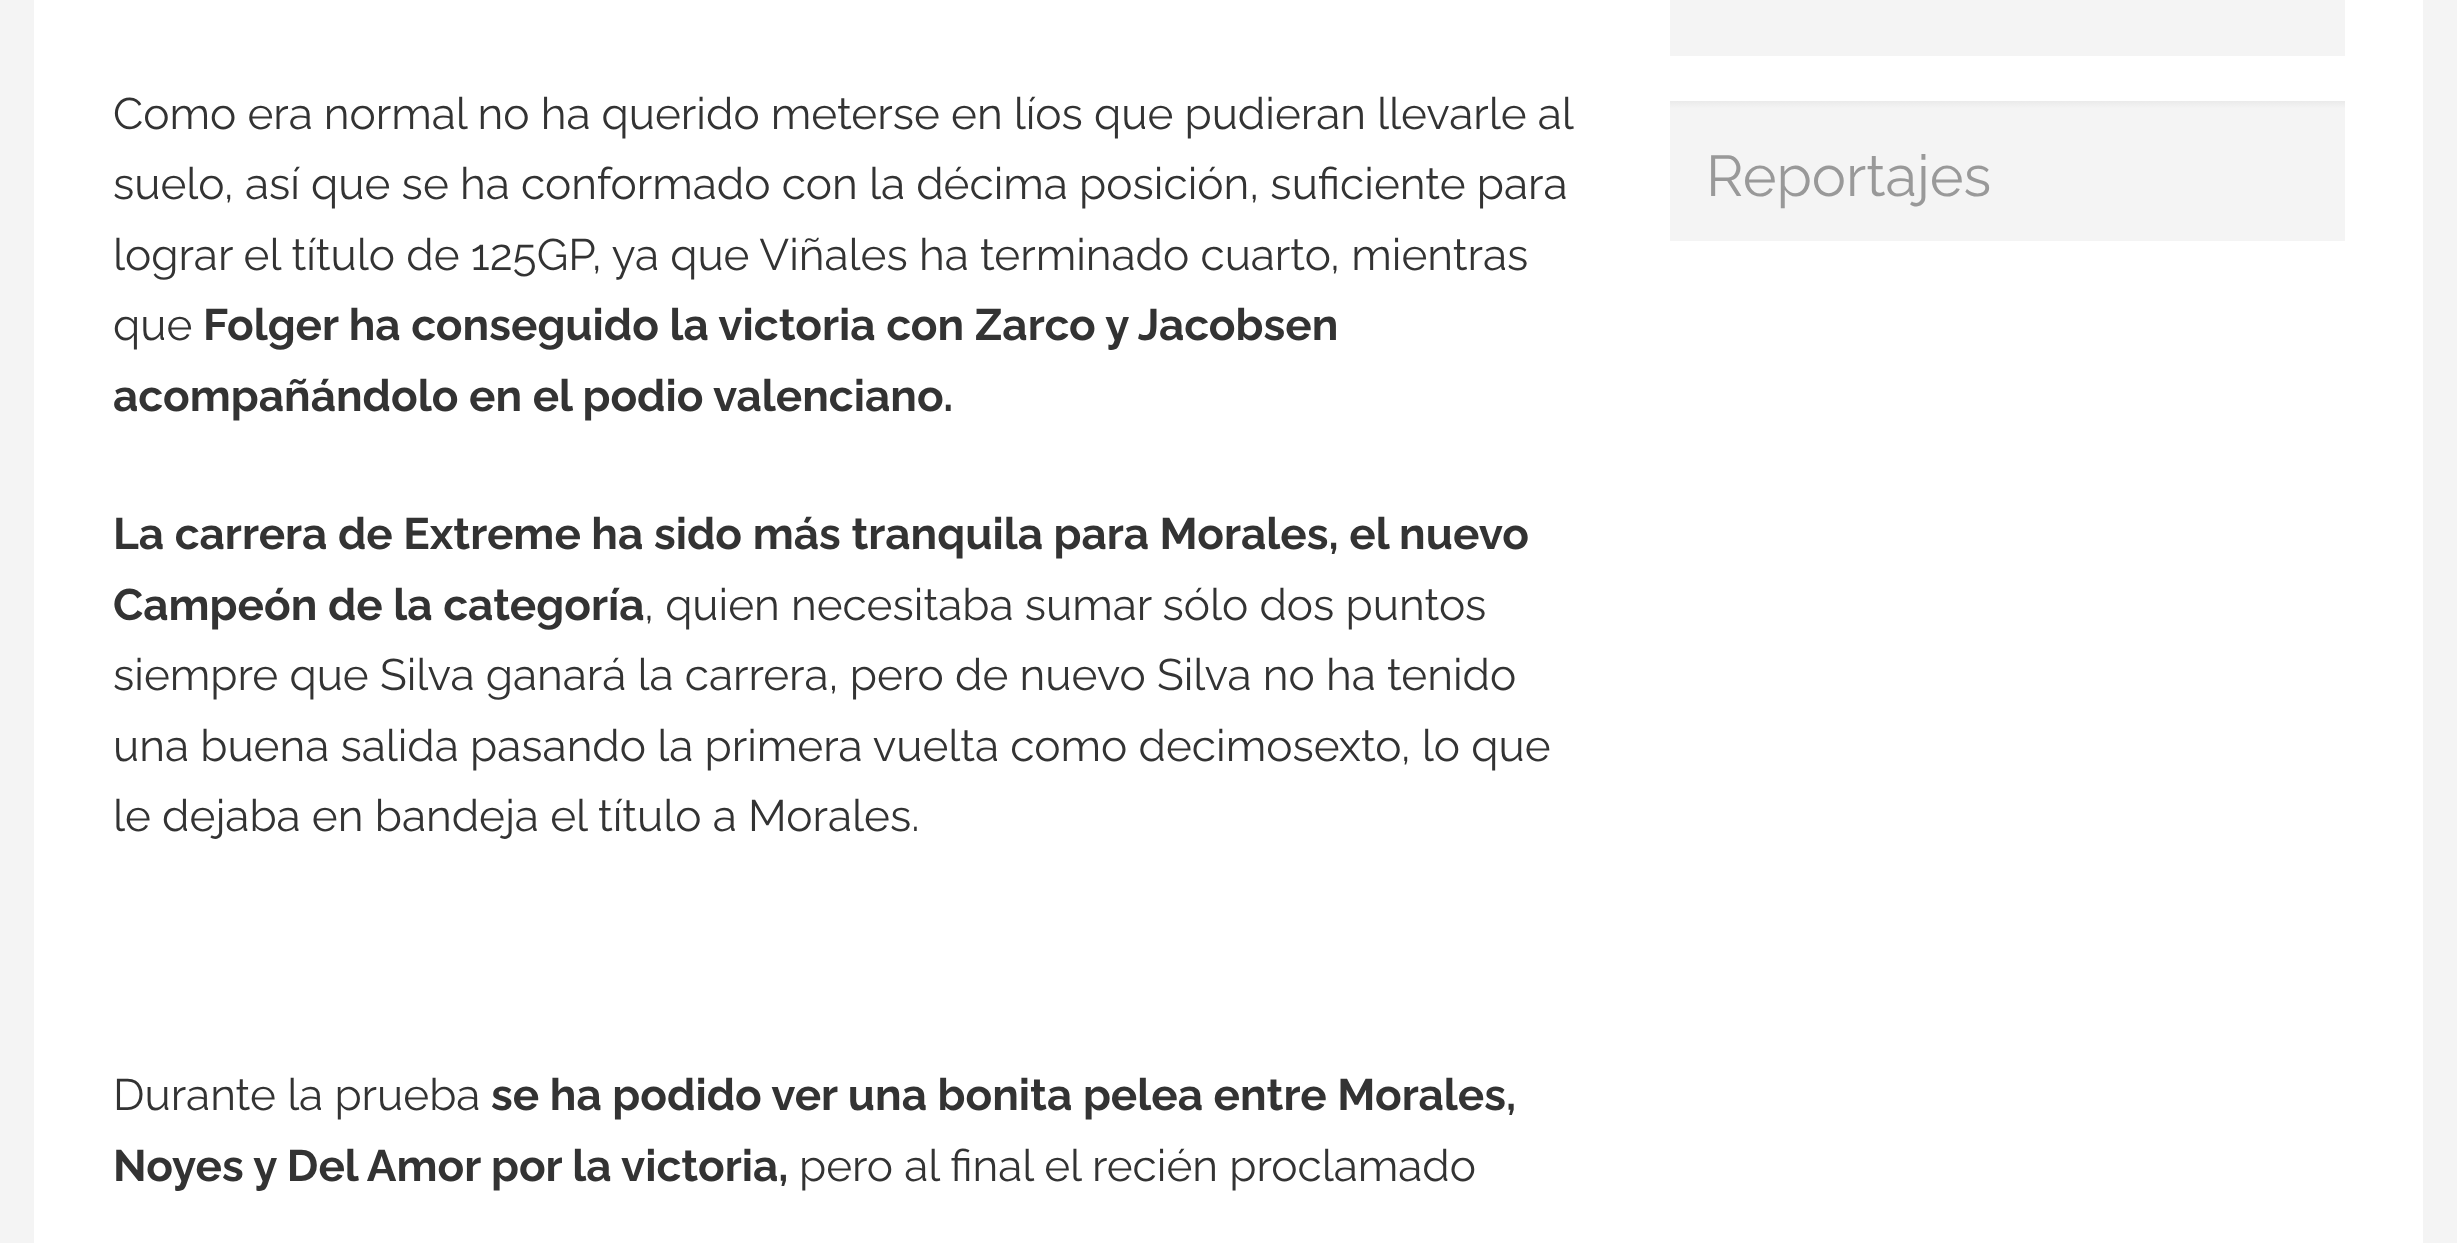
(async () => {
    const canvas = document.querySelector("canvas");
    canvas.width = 2457;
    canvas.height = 1243;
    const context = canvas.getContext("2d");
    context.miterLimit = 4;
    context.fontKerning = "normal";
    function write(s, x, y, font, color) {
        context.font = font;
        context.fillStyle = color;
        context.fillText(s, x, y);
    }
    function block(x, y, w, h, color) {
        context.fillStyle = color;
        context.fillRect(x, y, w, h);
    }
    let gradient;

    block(0, 0, 2457, 1243, "rgb(244, 244, 244)");
    block(34, 0, 2389, 1243, "rgb(255, 255, 255)");
    context.wordSpacing = "-0.1px";
    write("Como era normal no ha querido meterse en líos que pudieran llevarle al", 113, 129, "44.1px Raleway", "rgb(51, 51, 51)");
    context.wordSpacing = "0px";
    write("suelo, así que se ha conformado con la décima posición, suficiente para", 113, 199, "44.1px Raleway", "rgb(51, 51, 51)");
    write("lograr el título de 125GP, ya que Viñales ha terminado cuarto, mientras", 113, 270, "44.1px Raleway", "rgb(51, 51, 51)");
    write("que", 113, 340, "44.1px Raleway", "rgb(51, 51, 51)");
    write("Folger ha conseguido la victoria con Zarco y Jacobsen", 203, 340, "bold 44.1px Raleway", "rgb(51, 51, 51)");
    write("acompañándolo en el podio valenciano.", 113, 411, "bold 44.1px Raleway", "rgb(51, 51, 51)");
    write("La carrera de Extreme ha sido más tranquila para Morales, el nuevo", 113, 549, "bold 44.1px Raleway", "rgb(51, 51, 51)");
    write("Campeón de la categoría", 113, 620, "bold 44.1px Raleway", "rgb(51, 51, 51)");
    write(", quien necesitaba sumar sólo dos puntos", 644, 620, "44.1px Raleway", "rgb(51, 51, 51)");
    write("siempre que Silva ganará la carrera, pero de nuevo Silva no ha tenido", 113, 690, "44.1px Raleway", "rgb(51, 51, 51)");
    write("una buena salida pasando la primera vuelta como decimosexto, lo que", 113, 761, "44.1px Raleway", "rgb(51, 51, 51)");
    write("le dejaba en bandeja el título a Morales.", 113, 831, "44.1px Raleway", "rgb(51, 51, 51)");
    write("Durante la prueba", 113, 1110, "44.1px Raleway", "rgb(51, 51, 51)");
    write("se ha podido ver una bonita pelea entre Morales,", 491, 1110, "bold 44.1px Raleway", "rgb(51, 51, 51)");
    write("Noyes y Del Amor por la victoria,", 113, 1181, "bold 44.1px Raleway", "rgb(51, 51, 51)");
    write("pero al final el recién proclamado", 799, 1181, "44.1px Raleway", "rgb(51, 51, 51)");
    gradient = context.createLinearGradient(2007, -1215, 2007, 56);
    gradient.addColorStop(0, "rgb(234, 234, 234)");
    gradient.addColorStop(0.05, "rgb(244, 244, 244)");
    gradient.addColorStop(1, "rgb(244, 244, 244)");
    context.fillStyle = gradient;
    context.fillRect(1670, 0, 675, 56);
    gradient = context.createLinearGradient(2007, 101, 2007, 241);
    gradient.addColorStop(0, "rgb(234, 234, 234)");
    gradient.addColorStop(0.05, "rgb(244, 244, 244)");
    gradient.addColorStop(1, "rgb(244, 244, 244)");
    context.fillStyle = gradient;
    context.fillRect(1670, 101, 675, 140);
    write("Reportajes", 1706, 196, "57.5px Raleway", "rgb(153, 153, 153)");
})();
